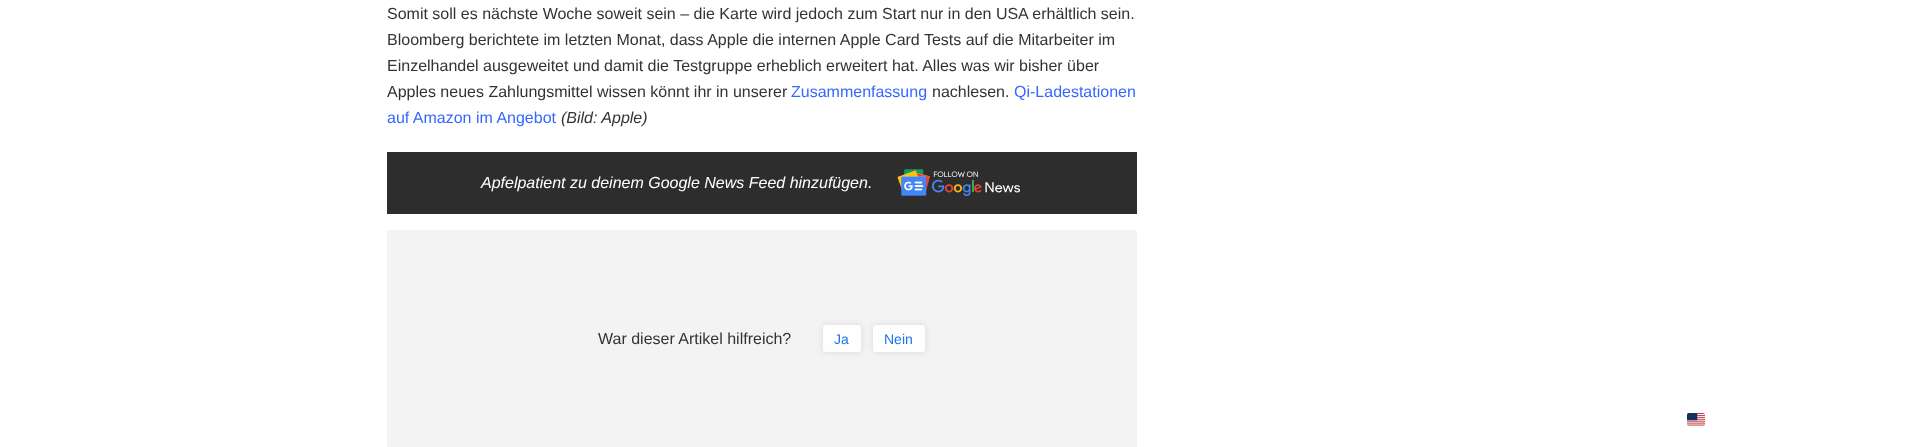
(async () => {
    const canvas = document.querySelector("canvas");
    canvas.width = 1913;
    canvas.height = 447;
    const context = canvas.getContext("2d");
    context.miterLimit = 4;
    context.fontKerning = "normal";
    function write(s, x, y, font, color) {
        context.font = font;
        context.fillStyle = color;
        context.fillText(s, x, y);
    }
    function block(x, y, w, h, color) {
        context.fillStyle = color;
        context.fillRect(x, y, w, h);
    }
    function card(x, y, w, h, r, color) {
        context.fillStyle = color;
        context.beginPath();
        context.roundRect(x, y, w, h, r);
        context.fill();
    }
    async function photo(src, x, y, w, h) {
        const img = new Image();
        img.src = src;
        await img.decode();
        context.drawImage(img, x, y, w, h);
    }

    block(0, 0, 1913, 447, "rgb(255, 255, 255)");
    write("Somit soll es nächste Woche soweit sein – die Karte wird jedoch zum Start nur in den USA erhältlich sein.", 387, 19, "16px Liberation Sans", "rgb(51, 51, 51)");
    write("Bloomberg berichtete im letzten Monat, dass Apple die internen Apple Card Tests auf die Mitarbeiter im", 387, 45, "16px Liberation Sans", "rgb(51, 51, 51)");
    write("Einzelhandel ausgeweitet und damit die Testgruppe erheblich erweitert hat. Alles was wir bisher über", 387, 71, "16px Liberation Sans", "rgb(51, 51, 51)");
    write("Apples neues Zahlungsmittel wissen könnt ihr in unserer", 387, 97, "16px Liberation Sans", "rgb(51, 51, 51)");
    write("Zusammenfassung", 791, 97, "16px Liberation Sans", "rgb(54, 103, 255)");
    write("nachlesen.", 932, 97, "16px Liberation Sans", "rgb(51, 51, 51)");
    write("Qi-Ladestationen", 1014, 97, "16px Liberation Sans", "rgb(54, 103, 255)");
    write("auf Amazon im Angebot", 387, 123, "16px Liberation Sans", "rgb(54, 103, 255)");
    write("(Bild: Apple)", 561, 123, "italic 16px Liberation Sans", "rgb(51, 51, 51)");
    block(387, 152, 750, 62, "rgb(46, 45, 45)");
    write("Apfelpatient zu deinem Google News Feed hinzufügen.", 481, 188, "italic 16px Liberation Sans", "rgb(255, 255, 255)");
    await photo("media/1.png", 897, 169, 124, 28);
    card(387, 230, 750, 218, 3, "rgb(243, 243, 243)");
    write("War dieser Artikel hilfreich?", 598, 344, "16px Liberation Sans", "rgb(51, 51, 51)");
    context.save();
    context.beginPath();
    context.moveTo(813, 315);
    context.lineTo(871, 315);
    context.lineTo(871, 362);
    context.lineTo(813, 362);
    context.closePath();
    context.moveTo(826, 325);
    context.lineTo(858, 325);
    context.bezierCurveTo(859.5, 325, 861, 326.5, 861, 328);
    context.lineTo(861, 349);
    context.bezierCurveTo(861, 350.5, 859.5, 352, 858, 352);
    context.lineTo(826, 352);
    context.bezierCurveTo(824.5, 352, 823, 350.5, 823, 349);
    context.lineTo(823, 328);
    context.bezierCurveTo(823, 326.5, 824.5, 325, 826, 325);
    context.closePath();
    context.clip("evenodd");
    context.fillStyle = "rgba(0, 0, 0, 0.1)";
    context.filter = "blur(3px)";
    context.beginPath();
    context.roundRect(823, 325, 38, 27, 3);
    context.fill();
    context.filter = "none";
    context.restore();
    card(823, 325, 38, 27, 3, "rgba(255, 255, 255, 0.9)");
    write("Ja", 834, 344, "14px Liberation Sans", "rgb(26, 115, 232)");
    context.save();
    context.beginPath();
    context.moveTo(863, 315);
    context.lineTo(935, 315);
    context.lineTo(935, 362);
    context.lineTo(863, 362);
    context.closePath();
    context.moveTo(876, 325);
    context.lineTo(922, 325);
    context.bezierCurveTo(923.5, 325, 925, 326.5, 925, 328);
    context.lineTo(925, 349);
    context.bezierCurveTo(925, 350.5, 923.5, 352, 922, 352);
    context.lineTo(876, 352);
    context.bezierCurveTo(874.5, 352, 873, 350.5, 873, 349);
    context.lineTo(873, 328);
    context.bezierCurveTo(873, 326.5, 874.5, 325, 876, 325);
    context.closePath();
    context.clip("evenodd");
    context.fillStyle = "rgba(0, 0, 0, 0.1)";
    context.filter = "blur(3px)";
    context.beginPath();
    context.roundRect(873, 325, 52, 27, 3);
    context.fill();
    context.filter = "none";
    context.restore();
    card(873, 325, 52, 27, 3, "rgba(255, 255, 255, 0.9)");
    write("Nein", 884, 344, "14px Liberation Sans", "rgb(26, 115, 232)");
    await photo("media/2.png", 1687, 413, 18, 13);
})();
